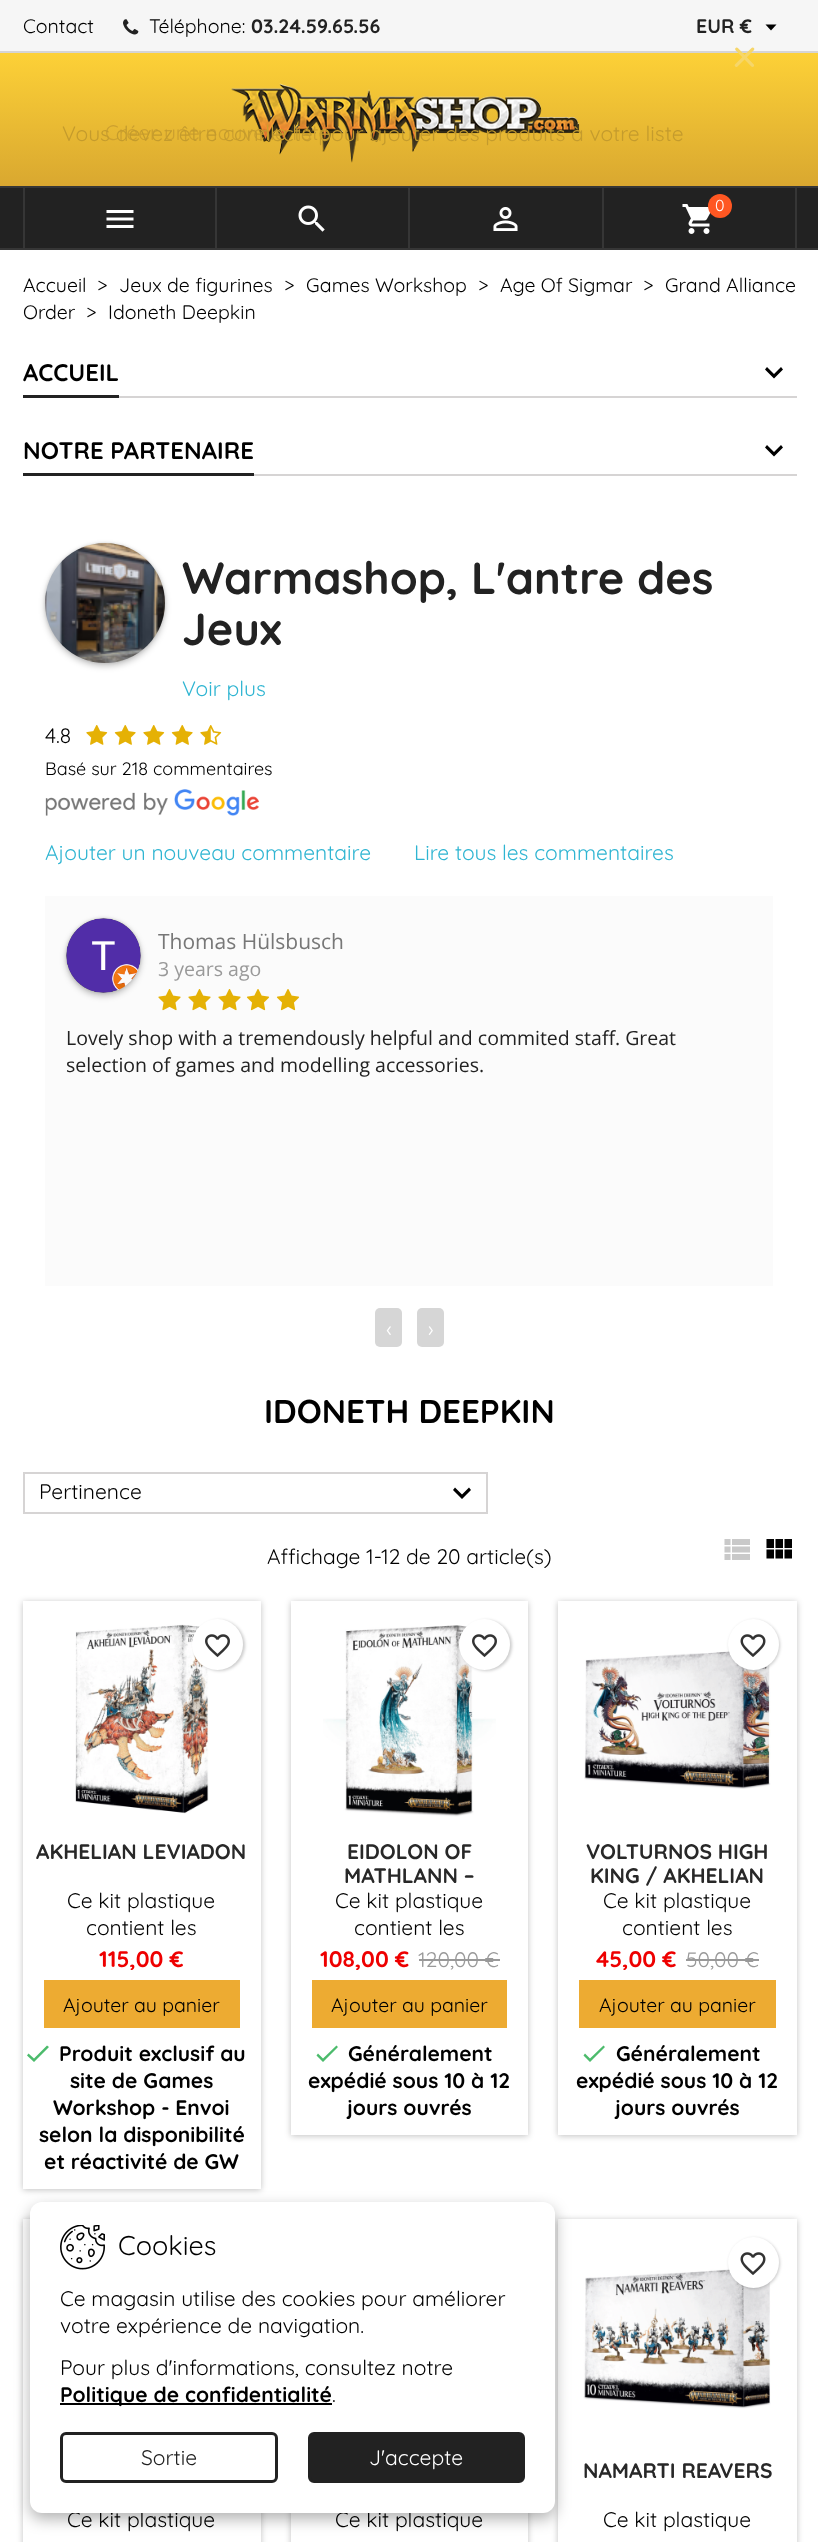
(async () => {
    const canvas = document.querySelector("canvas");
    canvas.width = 818;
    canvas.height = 2542;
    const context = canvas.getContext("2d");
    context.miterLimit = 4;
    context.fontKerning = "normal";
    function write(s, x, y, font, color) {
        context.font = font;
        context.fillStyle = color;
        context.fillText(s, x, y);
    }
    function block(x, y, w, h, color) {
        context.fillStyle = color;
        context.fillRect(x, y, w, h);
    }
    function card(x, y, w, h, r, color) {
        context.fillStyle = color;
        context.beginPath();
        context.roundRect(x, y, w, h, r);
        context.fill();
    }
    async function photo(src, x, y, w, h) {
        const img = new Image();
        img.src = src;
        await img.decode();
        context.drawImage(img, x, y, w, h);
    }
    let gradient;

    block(0, 0, 818, 2542, "rgb(255, 255, 255)");
    block(0, 0, 818, 51, "rgb(246, 246, 246)");
    block(0, 51, 818, 2, "rgb(214, 212, 212)");
    write("Contact", 23, 33, "19.5px Quicksand", "rgb(0, 0, 0)");
    await photo("media/1.png", 123, 19, 16, 16);
    write("Téléphone:", 149, 33, "19.5px Quicksand", "rgb(0, 0, 0)");
    write("03.24.59.65.56", 251, 33, "bold 19.5px Quicksand", "rgb(34, 34, 34)");
    write("EUR €", 696, 33, "bold 19.5px Quicksand", "rgb(34, 34, 34)");
    context.fillStyle = "rgb(0, 0, 0)";
    context.beginPath();
    context.moveTo(765.5, 24.5);
    context.lineTo(776.5, 24.5);
    context.lineTo(771, 30.5);
    context.closePath();
    context.fill();
    gradient = context.createLinearGradient(410, 52, 410, 249);
    gradient.addColorStop(0, "rgb(253, 209, 55)");
    gradient.addColorStop(0.66, "rgb(218, 169, 48)");
    gradient.addColorStop(1, "rgb(222, 125, 46)");
    context.fillStyle = gradient;
    context.fillRect(0, 53, 818, 133);
    await photo("media/2.png", 231, 83, 349, 80);
    block(0, 188, 818, 60, "rgb(34, 34, 34)");
    block(0, 186, 818, 2, "rgb(54, 54, 54)");
    block(0, 248, 818, 2, "rgb(54, 54, 54)");
    block(215, 188, 2, 60, "rgb(54, 54, 54)");
    block(23, 188, 2, 60, "rgb(54, 54, 54)");
    await photo("media/3.png", 106, 210, 28, 18);
    block(408, 188, 2, 60, "rgb(54, 54, 54)");
    await photo("media/4.png", 298, 205, 27, 27);
    block(602, 188, 2, 60, "rgb(54, 54, 54)");
    await photo("media/5.png", 493, 207, 25, 24);
    block(795, 188, 2, 60, "rgb(54, 54, 54)");
    await photo("media/6.png", 682, 204, 29, 30);
    context.fillStyle = "rgb(255, 87, 34)";
    context.beginPath();
    context.arc(720, 206, 12, 0, Math.PI * 2);
    context.fill();
    write("0", 715, 211, "16px Quicksand", "rgb(255, 255, 255)");
    write("×", 732, 75, "54px Quicksand", "rgb(246, 214, 106)");
    write("Créer une nouvelle liste", 105, 140, "21px Quicksand", "rgb(205, 160, 47)");
    write("Vous devez être connecté pour ajouter des produits à votre liste", 62, 141, "21px Quicksand", "rgb(196, 155, 45)");
    context.fillStyle = "rgba(0, 0, 0, 0.24)";
    context.filter = "blur(3px)";
    context.beginPath();
    context.rect(23, 1602, 238, 588);
    context.fill();
    context.filter = "none";
    block(23, 1601, 238, 588, "rgb(255, 255, 255)");
    context.fillStyle = "rgba(0, 0, 0, 0.24)";
    context.filter = "blur(3px)";
    context.beginPath();
    context.rect(558, 2220, 239, 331);
    context.fill();
    context.filter = "none";
    block(558, 2219, 239, 323, "rgb(255, 255, 255)");
    context.fillStyle = "rgba(0, 0, 0, 0.3)";
    context.filter = "blur(7.5px)";
    context.beginPath();
    context.roundRect(30, 2208, 525, 311, 12);
    context.fill();
    context.filter = "none";
    context.save();
    context.beginPath();
    context.moveTo(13, 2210);
    context.lineTo(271, 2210);
    context.lineTo(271, 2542);
    context.lineTo(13, 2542);
    context.closePath();
    context.moveTo(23, 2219);
    context.lineTo(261, 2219);
    context.lineTo(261, 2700);
    context.lineTo(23, 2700);
    context.closePath();
    context.clip("evenodd");
    context.fillStyle = "rgba(0, 0, 0, 0.24)";
    context.filter = "blur(3px)";
    context.beginPath();
    context.rect(23, 2220, 238, 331);
    context.fill();
    context.filter = "none";
    context.restore();
    write("Ce kit plastique", 67, 2527, "21px Quicksand", "rgb(0, 0, 0)");
    context.save();
    context.beginPath();
    context.moveTo(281, 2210);
    context.lineTo(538, 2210);
    context.lineTo(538, 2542);
    context.lineTo(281, 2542);
    context.closePath();
    context.moveTo(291, 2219);
    context.lineTo(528, 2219);
    context.lineTo(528, 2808);
    context.lineTo(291, 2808);
    context.closePath();
    context.clip("evenodd");
    context.fillStyle = "rgba(0, 0, 0, 0.24)";
    context.filter = "blur(3px)";
    context.beginPath();
    context.rect(291, 2220, 237, 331);
    context.fill();
    context.filter = "none";
    context.restore();
    write("Ce kit plastique", 335, 2527, "21px Quicksand", "rgb(0, 0, 0)");
    card(30, 2202, 525, 311, 12, "rgb(255, 255, 255)");
    await photo("media/7.png", 60, 2225, 45, 45);
    write("Cookies", 118, 2255, "27px Quicksand", "rgb(0, 0, 0)");
    write("Ce magasin utilise des cookies pour améliorer", 60, 2306, "21px Quicksand", "rgb(0, 0, 0)");
    write("votre expérience de navigation.", 60, 2333, "21px Quicksand", "rgb(0, 0, 0)");
    write("Pour plus d'informations, consultez notre", 60, 2375, "21px Quicksand", "rgb(0, 0, 0)");
    block(60, 2403, 272, 2, "rgb(0, 0, 0)");
    write("Politique de confidentialité", 60, 2402, "bold 21px Quicksand", "rgb(0, 0, 0)");
    write(".", 332, 2402, "21px Quicksand", "rgb(0, 0, 0)");
    context.beginPath();
    context.roundRect(61.5, 2433.5, 215, 48, 4.5);
    context.strokeStyle = "rgb(34, 34, 34)";
    context.lineWidth = 3;
    context.stroke();
    write("Sortie", 141, 2465, "21px Quicksand", "rgb(34, 34, 34)");
    context.beginPath();
    context.roundRect(309.5, 2433.5, 214, 48, 4.5);
    context.fill();
    context.stroke();
    write("J'accepte", 369, 2465, "21px Quicksand", "rgb(255, 255, 255)");
    write("Accueil", 23, 292, "19.5px Quicksand", "rgb(0, 0, 0)");
    write(">", 97, 292, "19.5px Quicksand", "rgb(0, 0, 0)");
    write("Jeux de figurines", 119, 292, "19.5px Quicksand", "rgb(0, 0, 0)");
    write(">", 284, 292, "19.5px Quicksand", "rgb(0, 0, 0)");
    write("Games Workshop", 306, 292, "19.5px Quicksand", "rgb(0, 0, 0)");
    write(">", 478, 292, "19.5px Quicksand", "rgb(0, 0, 0)");
    write("Age Of Sigmar", 500, 292, "19.5px Quicksand", "rgb(0, 0, 0)");
    write(">", 643, 292, "19.5px Quicksand", "rgb(0, 0, 0)");
    write("Grand Alliance", 665, 292, "19.5px Quicksand", "rgb(0, 0, 0)");
    write("Order", 23, 319, "19.5px Quicksand", "rgb(0, 0, 0)");
    write(">", 86, 319, "19.5px Quicksand", "rgb(0, 0, 0)");
    write("Idoneth Deepkin", 108, 319, "19.5px Quicksand", "rgb(0, 0, 0)");
    block(119, 396, 678, 2, "rgb(214, 212, 212)");
    block(23, 395, 96, 3, "rgb(34, 34, 34)");
    write("ACCUEIL", 23, 381, "bold 24px Quicksand", "rgb(0, 0, 0)");
    context.beginPath();
    context.moveTo(767, 367);
    context.lineTo(774, 374);
    context.lineTo(781, 367);
    context.lineTo(783, 369.5);
    context.lineTo(774, 378.5);
    context.lineTo(765, 369.5);
    context.closePath();
    context.fill();
    block(254, 474, 543, 2, "rgb(214, 212, 212)");
    block(23, 473, 231, 3, "rgb(34, 34, 34)");
    write("NOTRE PARTENAIRE", 23, 459, "bold 24px Quicksand", "rgb(0, 0, 0)");
    context.beginPath();
    context.moveTo(767, 445);
    context.lineTo(774, 452);
    context.lineTo(781, 445);
    context.lineTo(783, 447.5);
    context.lineTo(774, 456.5);
    context.lineTo(765, 447.5);
    context.closePath();
    context.fill();
    context.fillStyle = "rgba(0, 0, 0, 0.24)";
    context.filter = "blur(3px)";
    context.beginPath();
    context.roundRect(45, 546, 120, 120, 60);
    context.fill();
    context.filter = "none";
    context.fillStyle = "rgba(0, 0, 0, 0.12)";
    context.filter = "blur(1.5px)";
    context.beginPath();
    context.roundRect(45, 543, 120, 120, 60);
    context.fill();
    context.filter = "none";
    await photo("media/8.png", 45, 543, 120, 120);
    write("Warmashop, L'antre des", 182, 594, "bold 45px Quicksand", "rgb(34, 34, 34)");
    write("Jeux", 182, 645, "bold 45px Quicksand", "rgb(34, 34, 34)");
    write("Voir plus", 182, 696, "21px Quicksand", "rgb(47, 181, 210)");
    write("4.8", 45, 743, "21px Quicksand", "rgb(0, 0, 0)");
    await photo("media/9.png", 86, 725, 22, 20);
    await photo("media/10.png", 114, 725, 22, 20);
    await photo("media/9.png", 143, 725, 22, 20);
    await photo("media/10.png", 171, 725, 22, 20);
    await photo("media/11.png", 200, 725, 22, 20);
    write("Basé sur 218 commentaires", 45, 775, "18px Quicksand", "rgb(0, 0, 0)");
    await photo("media/12.png", 45, 789, 214, 27);
    write("Ajouter un nouveau commentaire", 45, 860, "21px Quicksand", "rgb(47, 181, 210)");
    write("Lire tous les commentaires", 414, 860, "21px Quicksand", "rgb(47, 181, 210)");
    block(45, 896, 728, 390, "rgb(251, 251, 251)");
    context.fillStyle = "rgba(0, 0, 0, 0.24)";
    context.filter = "blur(3px)";
    context.beginPath();
    context.roundRect(66, 921, 75, 75, 37.5);
    context.fill();
    context.filter = "none";
    context.fillStyle = "rgba(0, 0, 0, 0.12)";
    context.filter = "blur(1.5px)";
    context.beginPath();
    context.roundRect(66, 918, 75, 75, 37.5);
    context.fill();
    context.filter = "none";
    await photo("media/13.png", 66, 918, 75, 75);
    write("Thomas Hülsbusch", 158, 949, "21px Open Sans", "rgb(119, 119, 119)");
    write("3 years ago", 158, 976, "19.5px Open Sans", "rgb(153, 153, 153)");
    await photo("media/14.png", 158, 989, 23, 22);
    await photo("media/14.png", 188, 989, 23, 22);
    await photo("media/14.png", 218, 989, 23, 22);
    await photo("media/15.png", 246, 989, 24, 22);
    await photo("media/15.png", 276, 989, 24, 22);
    write("Lovely shop with a tremendously helpful and commited staff. Great", 66, 1045, "19.5px Open Sans", "rgb(34, 34, 34)");
    write("selection of games and modelling accessories.", 66, 1072, "19.5px Open Sans", "rgb(34, 34, 34)");
    card(375, 1308, 27, 39, 5, "rgb(214, 214, 214)");
    write("‹", 386, 1336, "21px Quicksand", "rgb(255, 255, 255)");
    card(417, 1308, 27, 39, 5, "rgb(214, 214, 214)");
    write("›", 428, 1336, "21px Quicksand", "rgb(255, 255, 255)");
    write("IDONETH DEEPKIN", 264, 1423, "bold 33px Quicksand", "rgb(0, 0, 0)");
    context.strokeStyle = "rgb(214, 212, 212)";
    context.lineWidth = 2;
    context.strokeRect(24, 1473, 463, 40);
    write("Pertinence", 39, 1499, "21px Quicksand", "rgb(0, 0, 0)");
    context.beginPath();
    context.moveTo(455, 1487.5);
    context.lineTo(462, 1494.5);
    context.lineTo(469, 1487.5);
    context.lineTo(471, 1490);
    context.lineTo(462, 1499);
    context.lineTo(453, 1490);
    context.closePath();
    context.fill();
    write("Affichage 1-12 de 20 article(s)", 267, 1564, "21px Quicksand", "rgb(0, 0, 0)");
    await photo("media/16.png", 724, 1539, 26, 21);
    await photo("media/17.png", 766, 1539, 26, 20);
    await photo("media/18.png", 75, 1624, 135, 190);
    context.fillStyle = "rgba(0, 0, 0, 0.2)";
    context.filter = "blur(1.5px)";
    context.beginPath();
    context.roundRect(194, 1620, 51, 51, 25.5);
    context.fill();
    context.filter = "none";
    context.fillStyle = "rgb(255, 255, 255)";
    context.beginPath();
    context.arc(217.5, 1644.5, 25.5, 0, Math.PI * 2);
    context.fill();
    await photo("media/19.png", 205, 1634, 25, 24);
    write("AKHELIAN LEVIADON", 36, 1859, "bold 21px Quicksand", "rgb(40, 40, 40)");
    write("Ce kit plastique", 67, 1908, "21px Quicksand", "rgb(0, 0, 0)");
    write("contient les", 86, 1935, "21px Quicksand", "rgb(0, 0, 0)");
    write("115,00 €", 99, 1967, "bold 22.5px Quicksand", "rgb(238, 0, 0)");
    block(44, 1980, 196, 48, "rgb(237, 171, 50)");
    write("Ajouter au panier", 63, 2012, "19.5px Quicksand", "rgb(0, 0, 0)");
    context.fillStyle = "rgb(76, 187, 108)";
    context.beginPath();
    context.moveTo(34, 2058.5);
    context.lineTo(47, 2045.5);
    context.lineTo(49, 2047);
    context.lineTo(34, 2062);
    context.lineTo(27, 2055.5);
    context.lineTo(28.5, 2053.5);
    context.closePath();
    context.fill();
    write("Produit exclusif au", 59, 2061, "bold 21px Quicksand", "rgb(0, 0, 0)");
    write("site de Games", 70, 2088, "bold 21px Quicksand", "rgb(0, 0, 0)");
    write("Workshop - Envoi", 53, 2115, "bold 21px Quicksand", "rgb(0, 0, 0)");
    write("selon la disponibilité", 39, 2142, "bold 21px Quicksand", "rgb(0, 0, 0)");
    write("et réactivité de GW", 44, 2169, "bold 21px Quicksand", "rgb(0, 0, 0)");
    context.fillStyle = "rgba(0, 0, 0, 0.24)";
    context.filter = "blur(3px)";
    context.beginPath();
    context.rect(291, 1602, 237, 534);
    context.fill();
    context.filter = "none";
    block(291, 1601, 237, 534, "rgb(255, 255, 255)");
    await photo("media/20.png", 323, 1625, 173, 192);
    context.fillStyle = "rgba(0, 0, 0, 0.2)";
    context.filter = "blur(1.5px)";
    context.beginPath();
    context.roundRect(461, 1620, 51, 51, 25.5);
    context.fill();
    context.filter = "none";
    context.fillStyle = "rgb(255, 255, 255)";
    context.beginPath();
    context.arc(484.5, 1644.5, 25.5, 0, Math.PI * 2);
    context.fill();
    await photo("media/19.png", 472, 1634, 25, 24);
    write("EIDOLON OF", 347, 1859, "bold 21px Quicksand", "rgb(40, 40, 40)");
    write("MATHLANN –", 344, 1883, "bold 21px Quicksand", "rgb(40, 40, 40)");
    write("Ce kit plastique", 335, 1908, "21px Quicksand", "rgb(0, 0, 0)");
    write("contient les", 354, 1935, "21px Quicksand", "rgb(0, 0, 0)");
    write("108,00 €", 320, 1967, "bold 22.5px Quicksand", "rgb(238, 0, 0)");
    write("120,00 €", 418, 1967, "21px Quicksand", "rgb(153, 153, 153)");
    block(419, 1959, 81, 2, "rgb(153, 153, 153)");
    block(312, 1980, 195, 48, "rgb(237, 171, 50)");
    write("Ajouter au panier", 331, 2012, "19.5px Quicksand", "rgb(0, 0, 0)");
    context.fillStyle = "rgb(76, 187, 108)";
    context.beginPath();
    context.moveTo(323, 2058.5);
    context.lineTo(336.5, 2045.5);
    context.lineTo(338, 2047);
    context.lineTo(323, 2062);
    context.lineTo(316.5, 2055.5);
    context.lineTo(318, 2053.5);
    context.closePath();
    context.fill();
    write("Généralement", 348, 2061, "bold 21px Quicksand", "rgb(0, 0, 0)");
    write("expédié sous 10 à 12", 308, 2088, "bold 21px Quicksand", "rgb(0, 0, 0)");
    write("jours ouvrés", 347, 2115, "bold 21px Quicksand", "rgb(0, 0, 0)");
    context.fillStyle = "rgba(0, 0, 0, 0.24)";
    context.filter = "blur(3px)";
    context.beginPath();
    context.rect(558, 1602, 239, 534);
    context.fill();
    context.filter = "none";
    block(558, 1601, 239, 534, "rgb(255, 255, 255)");
    await photo("media/22.png", 584, 1650, 187, 139);
    context.fillStyle = "rgba(0, 0, 0, 0.2)";
    context.filter = "blur(1.5px)";
    context.beginPath();
    context.roundRect(729, 1620, 51, 51, 25.5);
    context.fill();
    context.filter = "none";
    context.fillStyle = "rgb(255, 255, 255)";
    context.beginPath();
    context.arc(753.5, 1644.5, 25.5, 0, Math.PI * 2);
    context.fill();
    await photo("media/21.png", 740, 1634, 26, 23);
    write("VOLTURNOS HIGH", 586, 1859, "bold 21px Quicksand", "rgb(40, 40, 40)");
    write("KING / AKHELIAN", 590, 1883, "bold 21px Quicksand", "rgb(40, 40, 40)");
    write("Ce kit plastique", 603, 1908, "21px Quicksand", "rgb(0, 0, 0)");
    write("contient les", 622, 1935, "21px Quicksand", "rgb(0, 0, 0)");
    write("45,00 €", 596, 1967, "bold 22.5px Quicksand", "rgb(238, 0, 0)");
    write("50,00 €", 686, 1967, "21px Quicksand", "rgb(153, 153, 153)");
    block(686, 1959, 73, 2, "rgb(153, 153, 153)");
    block(579, 1980, 197, 48, "rgb(237, 171, 50)");
    write("Ajouter au panier", 599, 2012, "19.5px Quicksand", "rgb(0, 0, 0)");
    context.fillStyle = "rgb(76, 187, 108)";
    context.beginPath();
    context.moveTo(590, 2058.5);
    context.lineTo(603.5, 2045.5);
    context.lineTo(605, 2047);
    context.lineTo(590, 2062);
    context.lineTo(583.5, 2055.5);
    context.lineTo(585, 2053.5);
    context.closePath();
    context.fill();
    write("Généralement", 616, 2061, "bold 21px Quicksand", "rgb(0, 0, 0)");
    write("expédié sous 10 à 12", 576, 2088, "bold 21px Quicksand", "rgb(0, 0, 0)");
    write("jours ouvrés", 615, 2115, "bold 21px Quicksand", "rgb(0, 0, 0)");
    await photo("media/23.png", 583, 2268, 188, 141);
    context.fillStyle = "rgba(0, 0, 0, 0.2)";
    context.filter = "blur(1.5px)";
    context.beginPath();
    context.roundRect(729, 2238, 51, 51, 25.5);
    context.fill();
    context.filter = "none";
    context.fillStyle = "rgb(255, 255, 255)";
    context.beginPath();
    context.arc(753.5, 2262.5, 25.5, 0, Math.PI * 2);
    context.fill();
    await photo("media/21.png", 740, 2252, 26, 23);
    write("NAMARTI REAVERS", 583, 2478, "bold 21px Quicksand", "rgb(40, 40, 40)");
    write("Ce kit plastique", 603, 2527, "21px Quicksand", "rgb(0, 0, 0)");
})();
